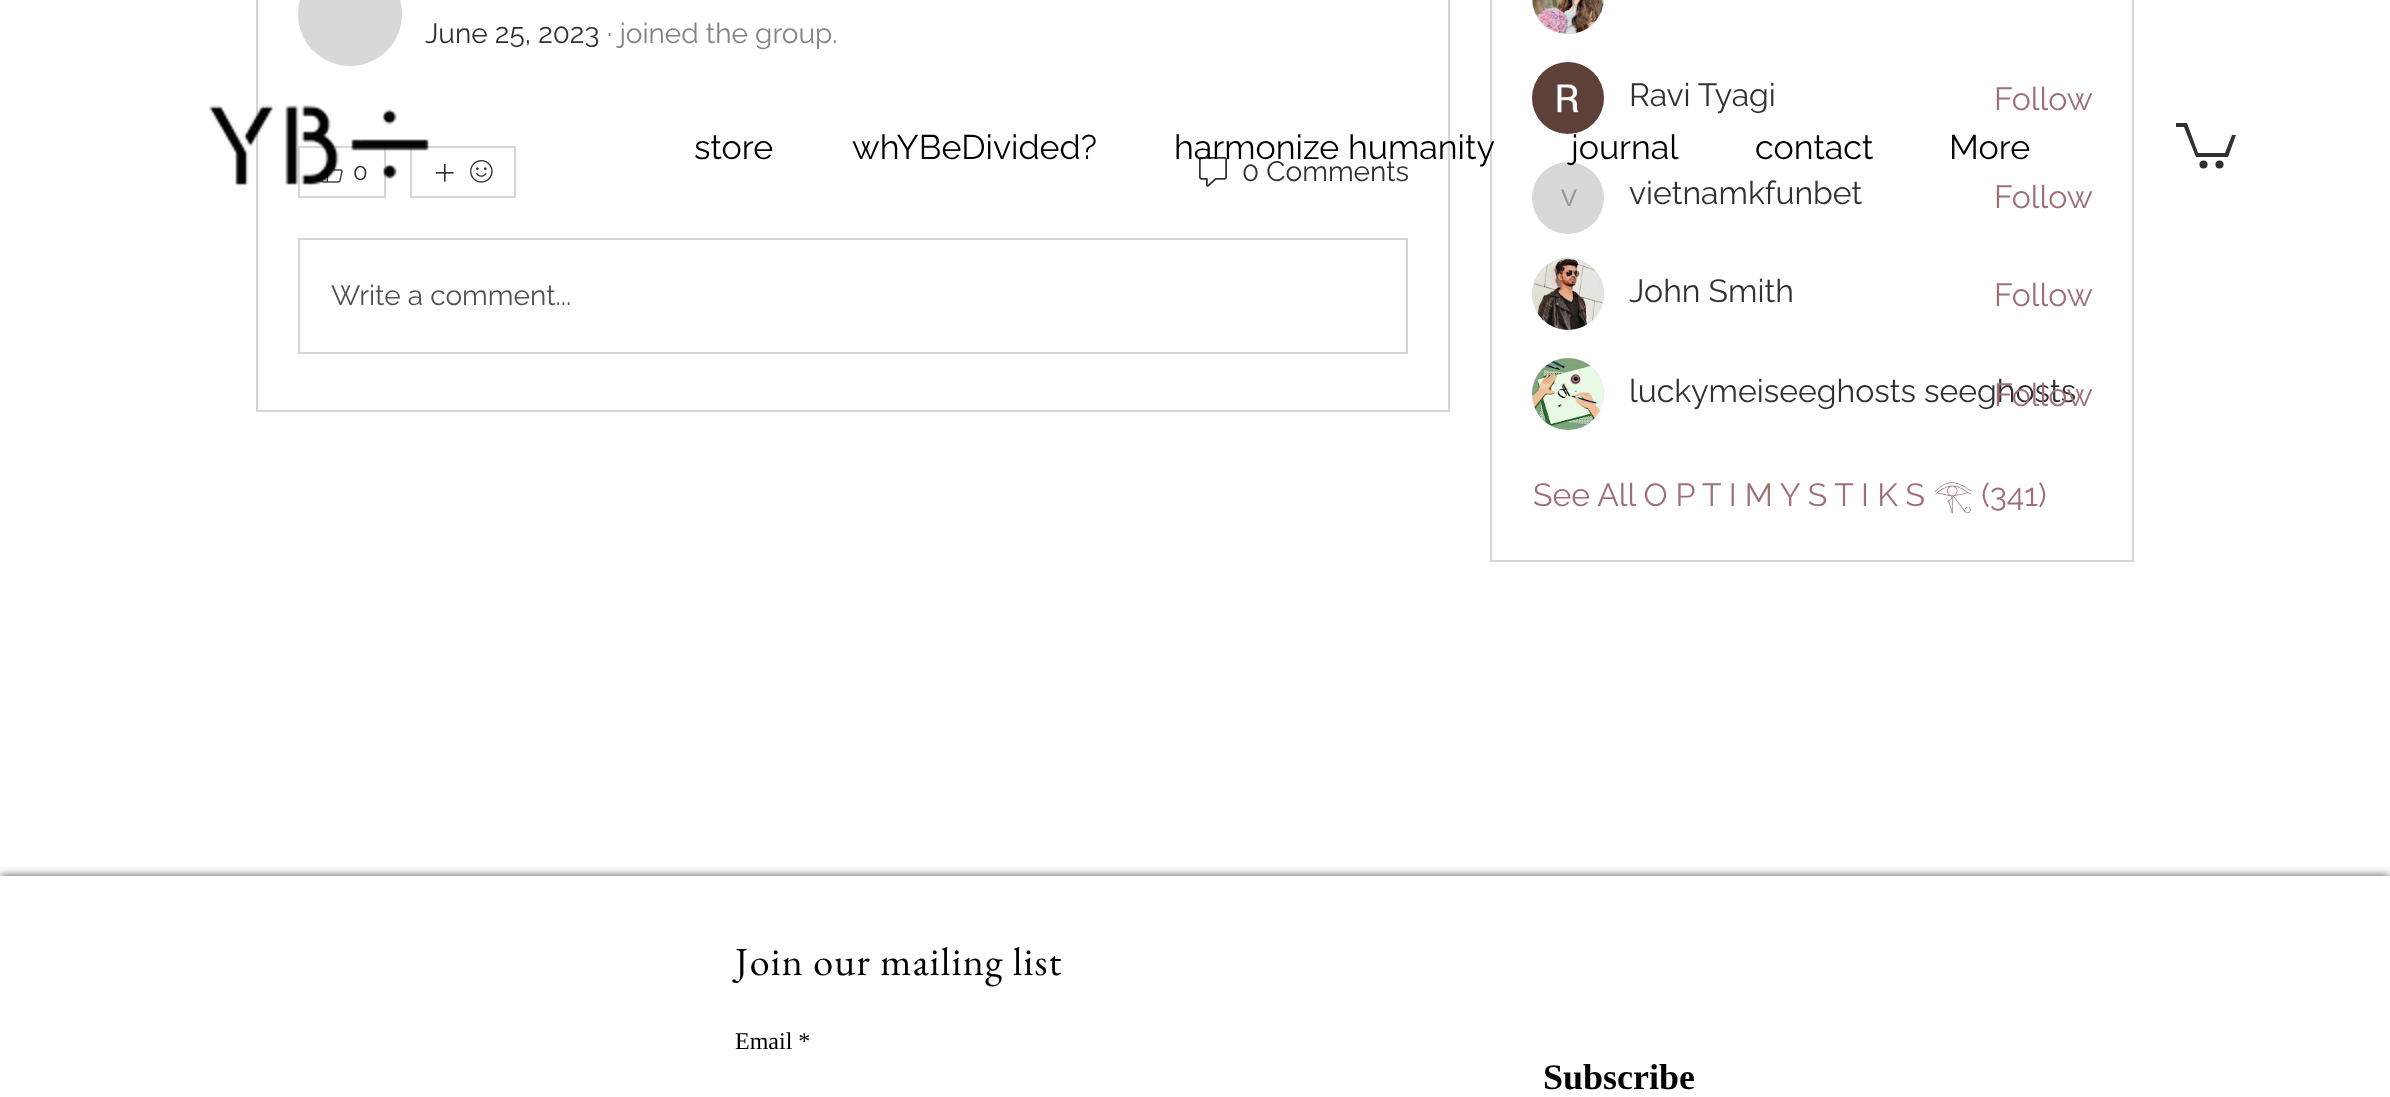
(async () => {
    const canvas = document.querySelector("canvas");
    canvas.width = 2390;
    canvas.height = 1097;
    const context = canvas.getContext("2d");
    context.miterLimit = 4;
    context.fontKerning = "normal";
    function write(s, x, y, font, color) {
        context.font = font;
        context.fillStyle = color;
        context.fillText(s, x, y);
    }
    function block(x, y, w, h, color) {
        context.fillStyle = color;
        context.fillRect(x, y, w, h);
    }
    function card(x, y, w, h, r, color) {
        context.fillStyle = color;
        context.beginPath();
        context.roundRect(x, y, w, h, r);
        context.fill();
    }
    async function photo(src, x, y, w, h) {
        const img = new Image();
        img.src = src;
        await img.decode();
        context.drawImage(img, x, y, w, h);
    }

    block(0, 0, 2390, 1097, "rgb(255, 255, 255)");
    context.strokeStyle = "rgb(214, 214, 214)";
    context.lineWidth = 2;
    context.strokeRect(257, -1, 1192, 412);
    context.fillStyle = "rgb(216, 216, 216)";
    context.beginPath();
    context.arc(350, 14, 52, 0, Math.PI * 2);
    context.fill();
    write("June 25, 2023", 425, 43, "28px Raleway", "rgb(48, 49, 50)");
    write("· joined the group.", 607, 43, "28px Raleway", "rgb(131, 131, 132)");
    context.strokeRect(299, 147, 86, 50);
    await photo("media/1.png", 321, 161, 22, 22);
    write("0", 353, 180, "24px Raleway", "rgb(48, 49, 50)");
    context.strokeRect(411, 147, 104, 50);
    await photo("media/2.png", 436, 164, 18, 18);
    await photo("media/3.png", 470, 160, 23, 23);
    await photo("media/4.png", 1199, 157, 28, 30);
    write("0 Comments", 1242, 181, "28px Raleway", "rgb(48, 49, 50)");
    context.strokeRect(299, 239, 1108, 114);
    write("Write a comment...", 331, 305, "28px Raleway", "rgb(83, 81, 81)");
    context.strokeRect(1491, -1, 642, 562);
    card(1532, -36, 72, 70, 36, "rgb(216, 216, 216)");
    await photo("media/5.png", 1532, 0, 72, 34);
    context.beginPath();
    context.arc(1568, 98, 36, 0, Math.PI * 2);
    context.fill();
    await photo("media/6.png", 1532, 62, 72, 72);
    write("Ravi Tyagi", 1629, 106, "32px Raleway", "rgb(48, 49, 50)");
    write("Follow", 1994, 110, "32px Raleway", "rgb(158, 112, 118)");
    context.fillStyle = "rgb(216, 216, 216)";
    context.beginPath();
    context.arc(1568, 198, 36, 0, Math.PI * 2);
    context.fill();
    write("V", 1561, 206, "24px Liberation Sans", "rgb(151, 151, 151)");
    write("vietnamkfunbet", 1629, 204, "32px Raleway", "rgb(48, 49, 50)");
    write("Follow", 1994, 208, "32px Raleway", "rgb(158, 112, 118)");
    context.fillStyle = "rgb(216, 216, 216)";
    context.beginPath();
    context.arc(1568, 294, 36, 0, Math.PI * 2);
    context.fill();
    await photo("media/7.png", 1532, 258, 72, 72);
    write("John Smith", 1629, 302, "32px Raleway", "rgb(48, 49, 50)");
    write("Follow", 1994, 306, "32px Raleway", "rgb(158, 112, 118)");
    context.fillStyle = "rgb(216, 216, 216)";
    context.beginPath();
    context.arc(1568, 394, 36, 0, Math.PI * 2);
    context.fill();
    await photo("media/8.png", 1532, 358, 72, 72);
    write("luckymeiseeghosts seeghosts", 1629, 402, "32px Raleway", "rgb(48, 49, 50)");
    write("Follow", 1994, 406, "32px Raleway", "rgb(158, 112, 118)");
    write("See All O P T I M Y S T I K S", 1533, 506, "32px Raleway", "rgb(158, 112, 118)");
    write("𓂀", 1933, 506, "32px Noto Sans Egyptian Hieroglyphs", "rgb(158, 112, 118)");
    write(" (341)", 1973, 506, "32px Raleway", "rgb(158, 112, 118)");
    await photo("media/9.png", 209, 105, 220, 82);
    write("store", 694, 159, "34px Raleway", "rgb(0, 0, 0)");
    write("whYBeDivided?", 852, 159, "34px Raleway", "rgb(0, 0, 0)");
    write("harmonize humanity", 1174, 159, "34px Raleway", "rgb(0, 0, 0)");
    write("journal", 1571, 159, "34px Raleway", "rgb(0, 0, 0)");
    write("contact", 1755, 159, "34px Raleway", "rgb(0, 0, 0)");
    write("More", 1949, 159, "34px Raleway", "rgb(0, 0, 0)");
    context.fillStyle = "rgb(48, 49, 50)";
    context.beginPath();
    context.moveTo(2236, 135);
    context.lineTo(2228, 157);
    context.lineTo(2196, 157);
    context.lineTo(2184, 127);
    context.lineTo(2176, 127);
    context.lineTo(2176, 123);
    context.lineTo(2187, 123);
    context.lineTo(2198, 153);
    context.lineTo(2225, 153);
    context.lineTo(2232, 135);
    context.fill();
    context.beginPath();
    context.arc(2219.5, 164.5, 4, 0, Math.PI * 2);
    context.fill();
    context.beginPath();
    context.arc(2203.5, 164.5, 4, 0, Math.PI * 2);
    context.fill();
    context.save();
    context.beginPath();
    context.rect(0, 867, 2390, 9);
    context.clip();
    context.fillStyle = "rgba(0, 0, 0, 0.7)";
    context.filter = "blur(5px)";
    context.beginPath();
    context.rect(0, 876, 2390, 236);
    context.fill();
    context.filter = "none";
    context.restore();
    context.letterSpacing = "1.2px";
    write("Join our mailing list", 735, 975, "40px EB Garamond", "rgb(0, 0, 0)");
    context.letterSpacing = "0px";
    write("Email *", 735, 1049, "24px Liberation Serif", "rgb(0, 0, 0)");
    write("Subscribe", 1543, 1089, "bold 36px Liberation Serif", "rgb(0, 0, 0)");
})();
